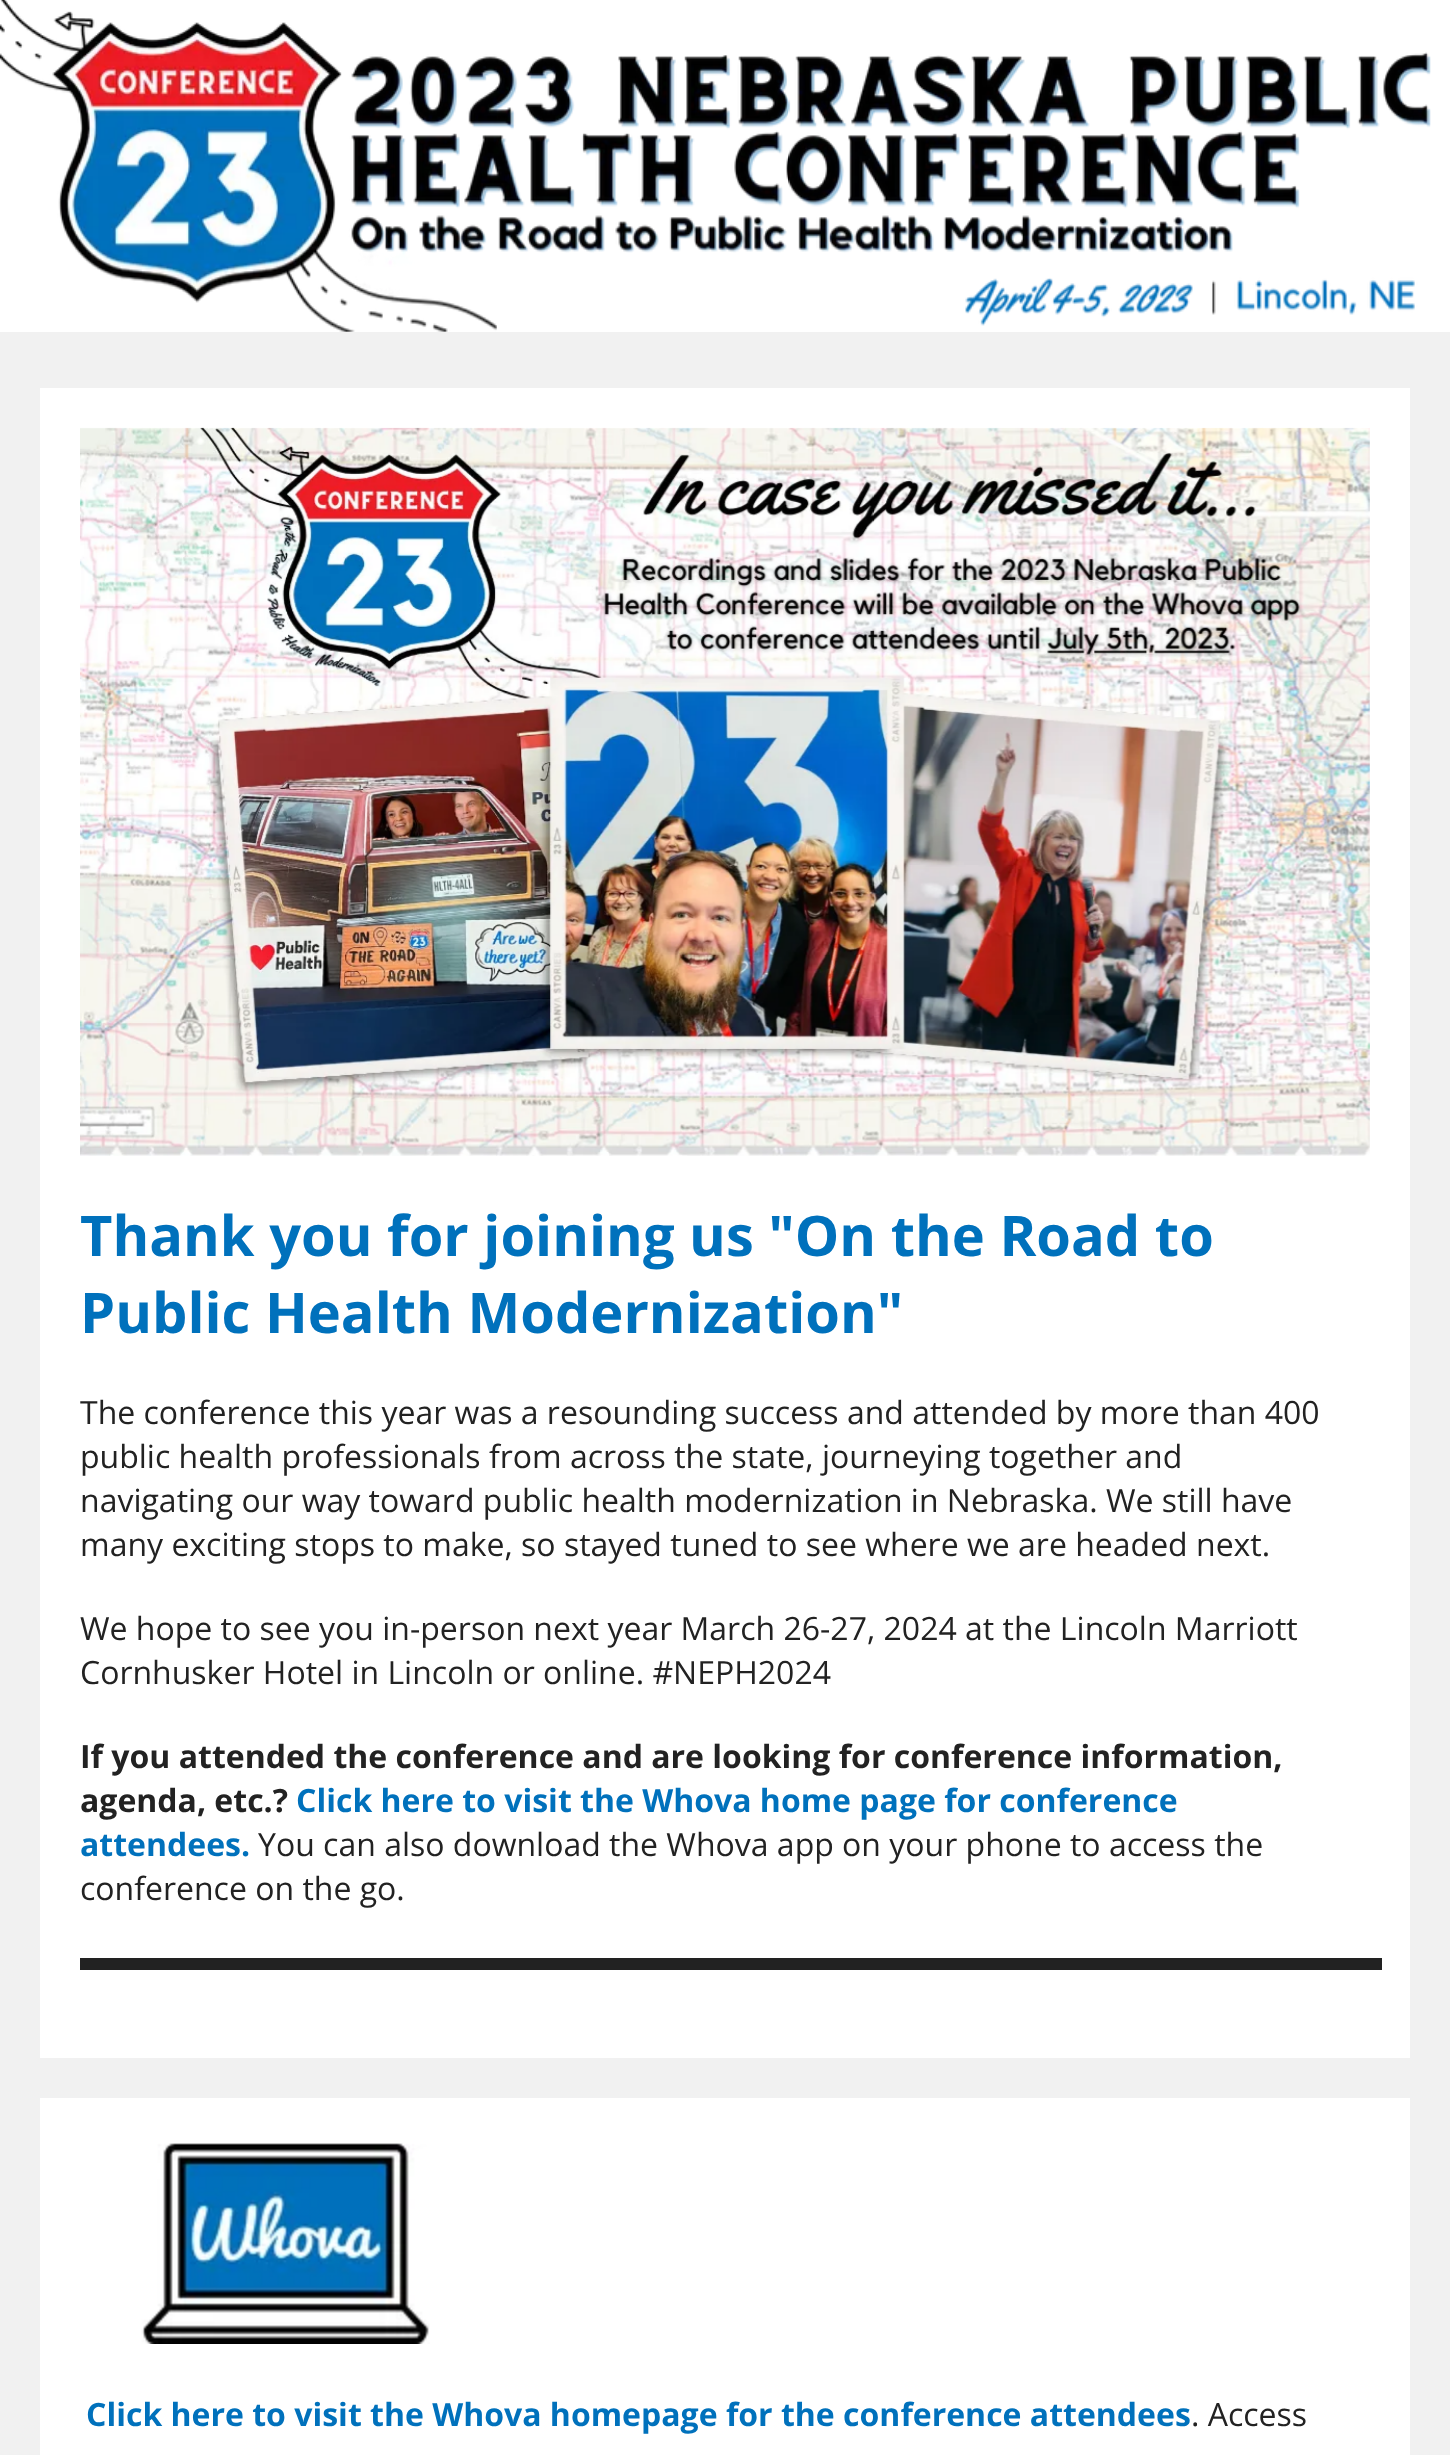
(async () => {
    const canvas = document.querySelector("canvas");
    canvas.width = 1450;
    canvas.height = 2455;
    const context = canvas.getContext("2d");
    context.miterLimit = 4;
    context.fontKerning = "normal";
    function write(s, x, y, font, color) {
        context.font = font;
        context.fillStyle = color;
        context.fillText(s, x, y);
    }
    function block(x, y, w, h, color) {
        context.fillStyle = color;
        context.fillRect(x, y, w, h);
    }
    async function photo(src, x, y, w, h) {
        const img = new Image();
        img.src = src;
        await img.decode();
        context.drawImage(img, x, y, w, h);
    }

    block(0, 0, 1450, 2455, "rgb(255, 255, 255)");
    await photo("media/1.png", 0, 0, 1431, 332);
    block(0, 332, 1450, 2123, "rgb(241, 241, 241)");
    block(40, 388, 1370, 1670, "rgb(255, 255, 255)");
    await photo("media/2.png", 80, 427, 1290, 729);
    write("Thank you for joining us \"On the Road to", 80, 1256, "bold 56px Open Sans", "rgb(0, 113, 188)");
    write("Public Health Modernization\"", 80, 1333, "bold 56px Open Sans", "rgb(0, 113, 188)");
    write("The conference this year was a resounding success and attended by more than 400", 80, 1424, "32px Open Sans", "rgb(34, 34, 34)");
    write("public health professionals from across the state, journeying together and", 80, 1468, "32px Open Sans", "rgb(34, 34, 34)");
    write("navigating our way toward public health modernization in Nebraska. We still have", 80, 1512, "32px Open Sans", "rgb(34, 34, 34)");
    write("many exciting stops to make, so stayed tuned to see where we are headed next.", 80, 1556, "32px Open Sans", "rgb(34, 34, 34)");
    write("We hope to see you in-person next year March 26-27, 2024 at the Lincoln Marriott", 80, 1640, "32px Open Sans", "rgb(34, 34, 34)");
    write("Cornhusker Hotel in Lincoln or online. #NEPH2024", 80, 1684, "32px Open Sans", "rgb(34, 34, 34)");
    write("If you attended the conference and are looking for conference information,", 80, 1768, "bold 32px Open Sans", "rgb(34, 34, 34)");
    write("agenda, etc.?", 80, 1812, "bold 32px Open Sans", "rgb(34, 34, 34)");
    write("Click here to visit the Whova home page for conference", 296, 1812, "bold 32px Open Sans", "rgb(0, 113, 188)");
    write("attendees.", 80, 1856, "bold 32px Open Sans", "rgb(0, 113, 188)");
    write("You can also download the Whova app on your phone to access the", 258, 1856, "32px Open Sans", "rgb(34, 34, 34)");
    write("conference on the go.", 80, 1900, "32px Open Sans", "rgb(34, 34, 34)");
    block(80, 1958, 1302, 12, "rgb(34, 34, 34)");
    block(40, 2098, 1370, 357, "rgb(255, 255, 255)");
    await photo("media/3.png", 141, 2143, 289, 201);
    write("Click here to visit the Whova homepage for the conference attendees", 86, 2426, "bold 32px Open Sans", "rgb(0, 113, 188)");
    write(". Access", 1191, 2426, "32px Open Sans", "rgb(34, 34, 34)");
})();
